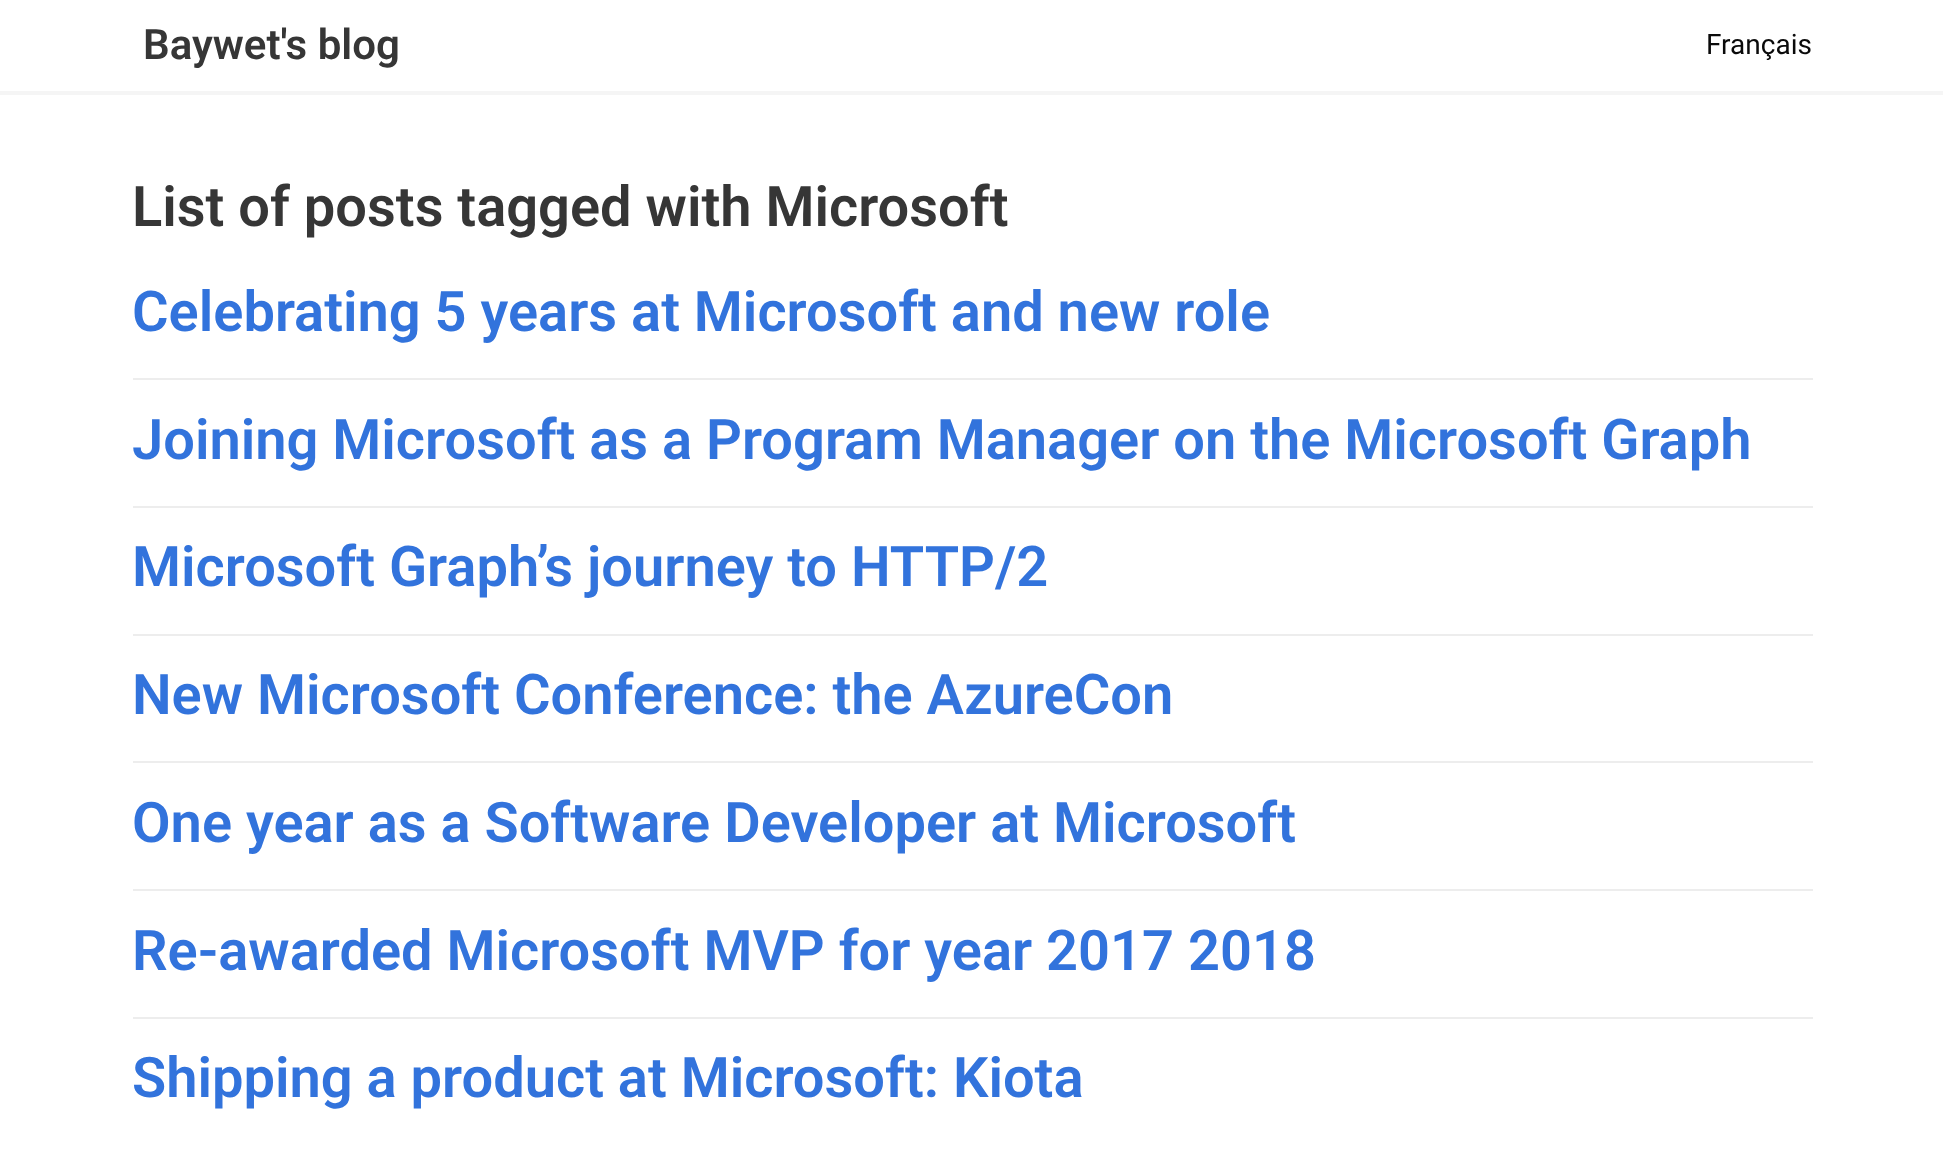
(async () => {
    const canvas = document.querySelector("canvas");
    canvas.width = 1943;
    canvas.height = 1167;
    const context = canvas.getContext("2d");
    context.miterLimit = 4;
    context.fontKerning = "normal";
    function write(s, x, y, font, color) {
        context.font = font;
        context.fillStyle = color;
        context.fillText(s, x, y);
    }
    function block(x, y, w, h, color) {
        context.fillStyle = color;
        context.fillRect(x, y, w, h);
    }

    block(0, 0, 1943, 1167, "rgb(255, 255, 255)");
    block(0, 91, 1943, 4, "rgb(245, 245, 245)");
    write("Baywet's blog", 143, 59, "600 42px Roboto", "rgb(54, 54, 54)");
    write("Français", 1706, 54, "28px Roboto", "rgb(10, 10, 10)");
    write("List of posts tagged with Microsoft", 132, 226, "600 56px Roboto", "rgb(54, 54, 54)");
    write("Celebrating 5 years at Microsoft and new role", 132, 331, "600 56px Roboto", "rgb(50, 115, 220)");
    block(133, 378, 1680, 2, "rgb(237, 237, 237)");
    write("Joining Microsoft as a Program Manager on the Microsoft Graph", 132, 459, "600 56px Roboto", "rgb(50, 115, 220)");
    block(133, 506, 1680, 2, "rgb(237, 237, 237)");
    write("Microsoft Graph’s journey to HTTP/2", 132, 586, "600 56px Roboto", "rgb(50, 115, 220)");
    block(133, 634, 1680, 2, "rgb(237, 237, 237)");
    write("New Microsoft Conference: the AzureCon", 132, 714, "600 56px Roboto", "rgb(50, 115, 220)");
    block(133, 761, 1680, 2, "rgb(237, 237, 237)");
    write("One year as a Software Developer at Microsoft", 132, 842, "600 56px Roboto", "rgb(50, 115, 220)");
    block(133, 889, 1680, 2, "rgb(237, 237, 237)");
    write("Re-awarded Microsoft MVP for year 2017 2018", 132, 970, "600 56px Roboto", "rgb(50, 115, 220)");
    block(133, 1017, 1680, 2, "rgb(237, 237, 237)");
    write("Shipping a product at Microsoft: Kiota", 132, 1097, "600 56px Roboto", "rgb(50, 115, 220)");
})();
